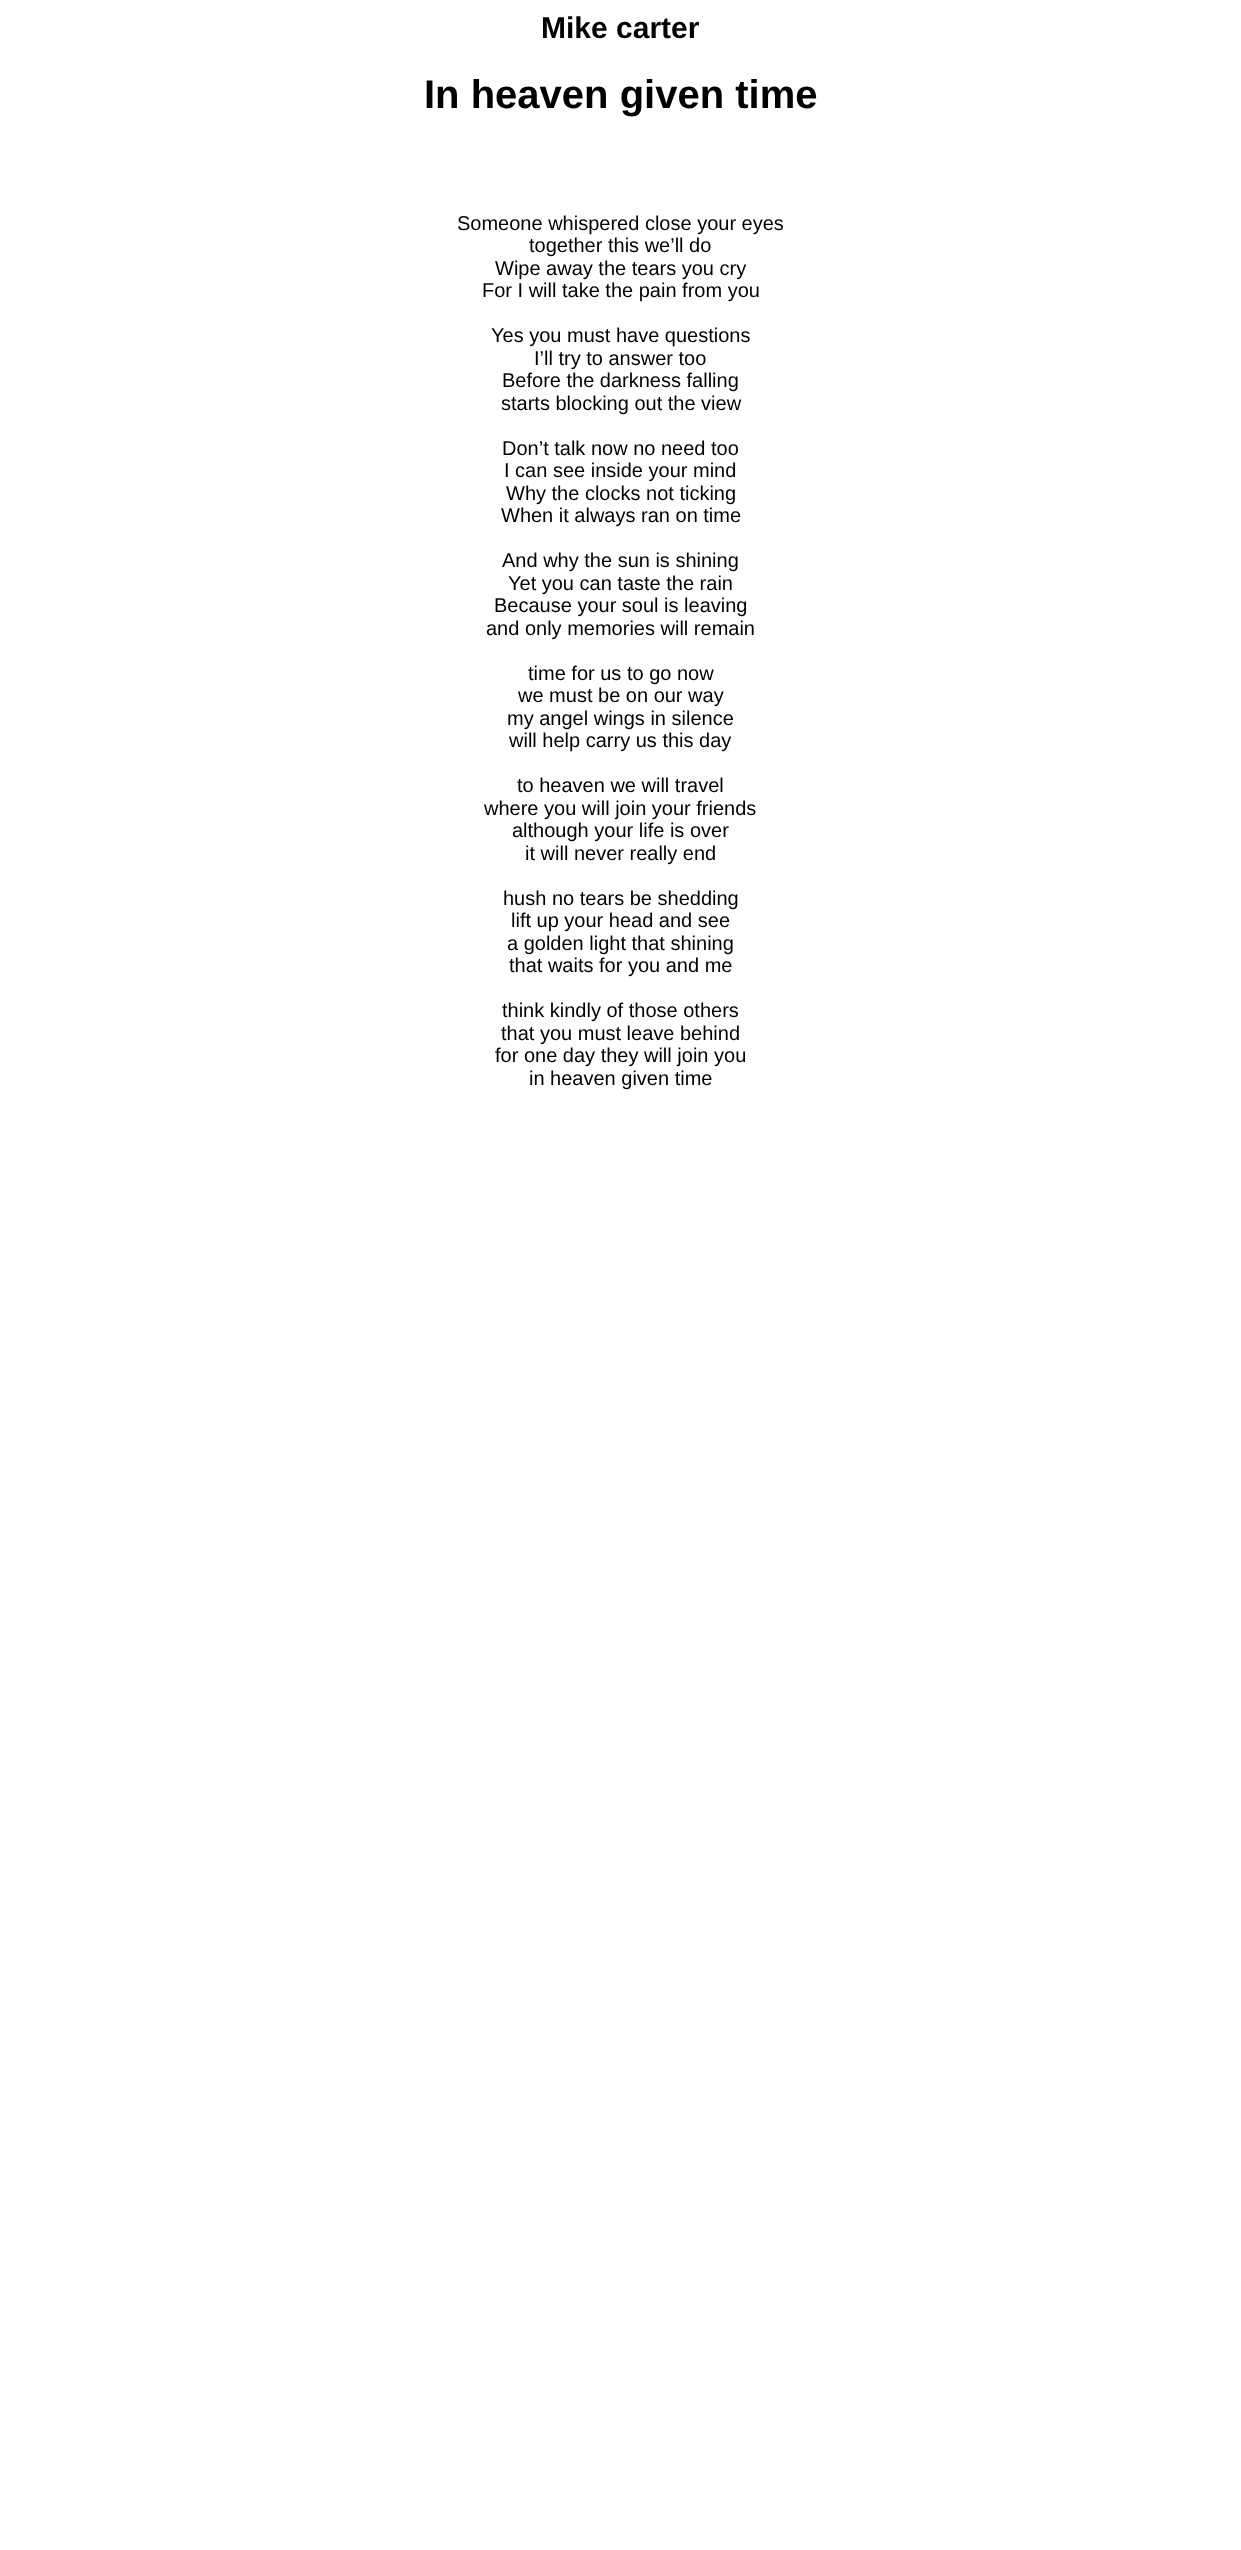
(async () => {
    const canvas = document.querySelector("canvas");
    canvas.width = 1241;
    canvas.height = 2550;
    const context = canvas.getContext("2d");
    context.miterLimit = 4;
    context.fontKerning = "normal";
    function write(s, x, y, font, color) {
        context.font = font;
        context.fillStyle = color;
        context.fillText(s, x, y);
    }
    function block(x, y, w, h, color) {
        context.fillStyle = color;
        context.fillRect(x, y, w, h);
    }

    block(0, 0, 1241, 2550, "rgb(255, 255, 255)");
    write("Mike carter", 541, 38, "bold 30px Liberation Sans", "rgb(0, 0, 0)");
    write("In heaven given time", 424, 108, "bold 40px Liberation Sans", "rgb(0, 0, 0)");
    write("Someone whispered close your eyes", 457, 230, "20px Liberation Sans", "rgb(0, 0, 0)");
    write("together this we’ll do", 529, 252, "20px Liberation Sans", "rgb(0, 0, 0)");
    write("Wipe away the tears you cry", 495, 275, "20px Liberation Sans", "rgb(0, 0, 0)");
    write("For I will take the pain from you", 482, 297, "20px Liberation Sans", "rgb(0, 0, 0)");
    write("Yes you must have questions", 491, 342, "20px Liberation Sans", "rgb(0, 0, 0)");
    write("I’ll try to answer too", 534, 365, "20px Liberation Sans", "rgb(0, 0, 0)");
    write("Before the darkness falling", 502, 387, "20px Liberation Sans", "rgb(0, 0, 0)");
    write("starts blocking out the view", 501, 410, "20px Liberation Sans", "rgb(0, 0, 0)");
    write("Don’t talk now no need too", 502, 455, "20px Liberation Sans", "rgb(0, 0, 0)");
    write("I can see inside your mind", 504, 477, "20px Liberation Sans", "rgb(0, 0, 0)");
    write("Why the clocks not ticking", 506, 500, "20px Liberation Sans", "rgb(0, 0, 0)");
    write("When it always ran on time", 501, 522, "20px Liberation Sans", "rgb(0, 0, 0)");
    write("And why the sun is shining", 502, 567, "20px Liberation Sans", "rgb(0, 0, 0)");
    write("Yet you can taste the rain", 508, 590, "20px Liberation Sans", "rgb(0, 0, 0)");
    write("Because your soul is leaving", 494, 612, "20px Liberation Sans", "rgb(0, 0, 0)");
    write("and only memories will remain", 486, 635, "20px Liberation Sans", "rgb(0, 0, 0)");
    write("time for us to go now", 528, 680, "20px Liberation Sans", "rgb(0, 0, 0)");
    write("we must be on our way", 518, 702, "20px Liberation Sans", "rgb(0, 0, 0)");
    write("my angel wings in silence", 507, 725, "20px Liberation Sans", "rgb(0, 0, 0)");
    write("will help carry us this day", 509, 747, "20px Liberation Sans", "rgb(0, 0, 0)");
    write("to heaven we will travel", 517, 792, "20px Liberation Sans", "rgb(0, 0, 0)");
    write("where you will join your friends", 484, 815, "20px Liberation Sans", "rgb(0, 0, 0)");
    write("although your life is over", 512, 837, "20px Liberation Sans", "rgb(0, 0, 0)");
    write("it will never really end", 525, 860, "20px Liberation Sans", "rgb(0, 0, 0)");
    write("hush no tears be shedding", 503, 905, "20px Liberation Sans", "rgb(0, 0, 0)");
    write("lift up your head and see", 511, 927, "20px Liberation Sans", "rgb(0, 0, 0)");
    write("a golden light that shining", 507, 950, "20px Liberation Sans", "rgb(0, 0, 0)");
    write("that waits for you and me", 509, 972, "20px Liberation Sans", "rgb(0, 0, 0)");
    write("think kindly of those others", 502, 1017, "20px Liberation Sans", "rgb(0, 0, 0)");
    write("that you must leave behind", 501, 1040, "20px Liberation Sans", "rgb(0, 0, 0)");
    write("for one day they will join you", 495, 1062, "20px Liberation Sans", "rgb(0, 0, 0)");
    write("in heaven given time", 529, 1085, "20px Liberation Sans", "rgb(0, 0, 0)");
})();
